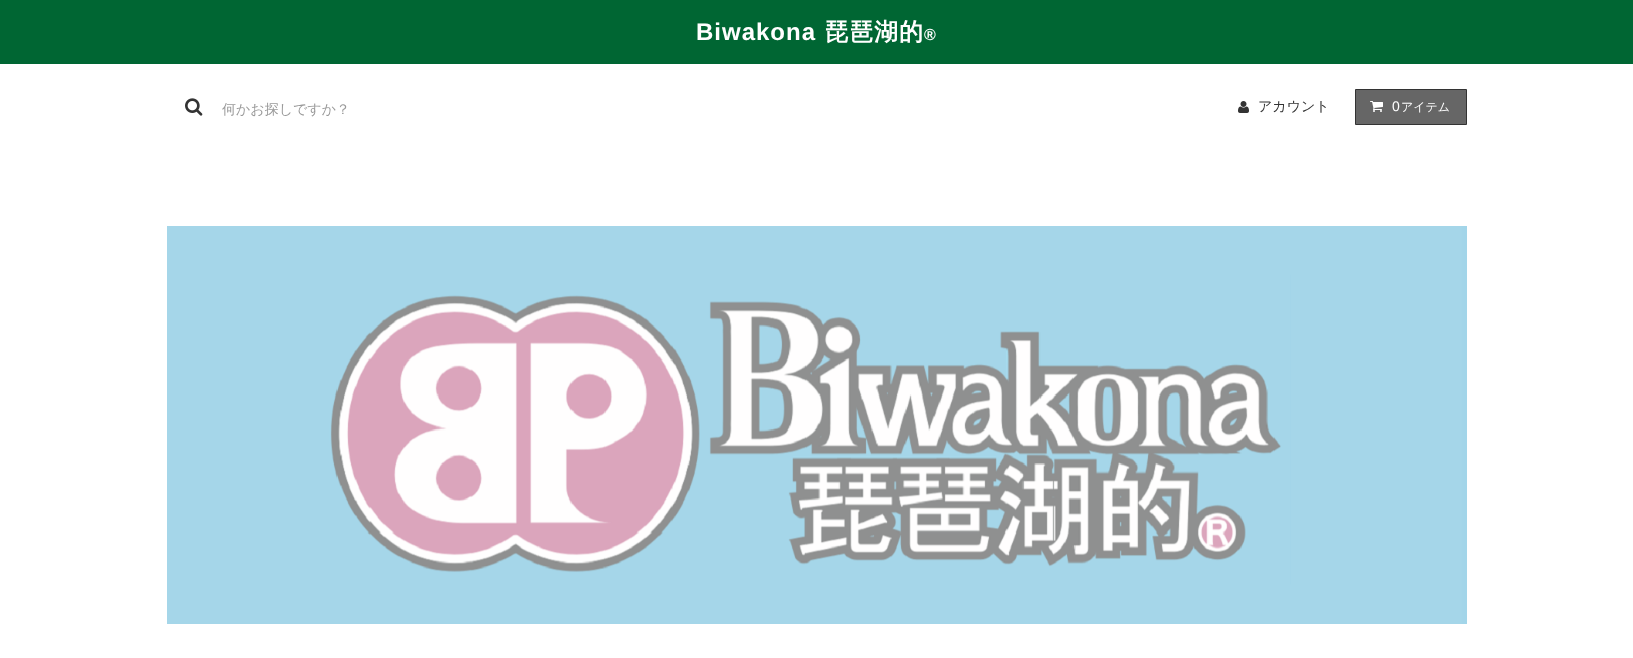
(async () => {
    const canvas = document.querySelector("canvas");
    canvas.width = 1633;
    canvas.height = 658;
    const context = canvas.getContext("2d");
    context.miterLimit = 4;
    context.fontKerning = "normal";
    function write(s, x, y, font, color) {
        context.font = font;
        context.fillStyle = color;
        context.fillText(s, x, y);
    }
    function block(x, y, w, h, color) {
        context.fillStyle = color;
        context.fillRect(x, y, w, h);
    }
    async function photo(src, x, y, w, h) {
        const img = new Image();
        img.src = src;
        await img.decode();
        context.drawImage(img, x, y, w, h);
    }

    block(0, 0, 1633, 658, "rgb(255, 255, 255)");
    block(0, 0, 1633, 64, "rgb(0, 102, 51)");
    context.letterSpacing = "1px";
    write("Biwakona", 696, 40, "bold 24px Liberation Sans", "rgb(255, 255, 255)");
    write("琵琶湖的", 824, 40, "bold 24px WenQuanYi Zen Hei", "rgb(255, 255, 255)");
    write("®︎", 924, 40, "bold 16px Liberation Sans", "rgb(255, 255, 255)");
    await photo("media/1.png", 185, 98, 18, 18);
    context.letterSpacing = "0px";
    write("何かお探しですか？", 222, 114, "500 14px WenQuanYi Zen Hei", "rgb(153, 153, 153)");
    await photo("media/2.png", 1238, 101, 11, 12);
    write("アカウント", 1258, 111, "500 14px WenQuanYi Zen Hei", "rgb(51, 51, 51)");
    context.fillStyle = "rgb(102, 102, 102)";
    context.beginPath();
    context.rect(1355.5, 89.5, 111, 35);
    context.fill();
    context.strokeStyle = "rgb(51, 51, 51)";
    context.stroke();
    await photo("media/3.png", 1370, 101, 13, 11);
    write("0", 1392, 111, "14px Liberation Sans", "rgb(255, 255, 255)");
    write("アイテム", 1401, 111, "500 12px WenQuanYi Zen Hei", "rgb(255, 255, 255)");
    await photo("media/4.png", 167, 226, 1300, 398);
})();
